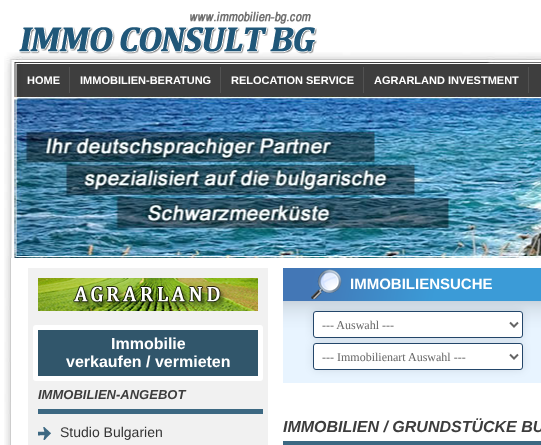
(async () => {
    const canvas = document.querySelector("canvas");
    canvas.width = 541;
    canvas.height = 445;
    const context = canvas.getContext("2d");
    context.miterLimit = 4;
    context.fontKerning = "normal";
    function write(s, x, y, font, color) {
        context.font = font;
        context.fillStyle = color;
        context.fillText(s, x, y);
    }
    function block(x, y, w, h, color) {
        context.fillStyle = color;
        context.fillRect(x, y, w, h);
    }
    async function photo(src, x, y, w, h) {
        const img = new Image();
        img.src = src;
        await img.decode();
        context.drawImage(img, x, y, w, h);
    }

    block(0, 0, 541, 445, "rgb(255, 255, 255)");
    await photo("media/1.png", 4, 52, 537, 206);
    await photo("media/2.png", 19, 11, 298, 43);
    block(69, 67, 1, 26, "rgb(82, 82, 82)");
    write("HOME", 27, 84, "bold 11px Liberation Sans", "rgb(255, 255, 255)");
    block(220, 67, 1, 26, "rgb(82, 82, 82)");
    write("IMMOBILIEN-BERATUNG", 80, 84, "bold 11px Liberation Sans", "rgb(255, 255, 255)");
    block(363, 67, 1, 26, "rgb(82, 82, 82)");
    write("RELOCATION SERVICE", 231, 84, "bold 11px Liberation Sans", "rgb(255, 255, 255)");
    block(528, 67, 1, 26, "rgb(82, 82, 82)");
    write("AGRARLAND INVESTMENT", 374, 84, "bold 11px Liberation Sans", "rgb(255, 255, 255)");
    await photo("media/3.png", 4, 258, 7, 187);
    block(28, 268, 240, 177, "rgb(241, 241, 241)");
    await photo("media/4.png", 38, 278, 220, 33);
    context.fillStyle = "rgb(49, 86, 107)";
    context.beginPath();
    context.roundRect(35.5, 327.5, 225, 51, 0.5);
    context.fill();
    context.strokeStyle = "rgb(255, 255, 255)";
    context.lineWidth = 5;
    context.stroke();
    write("Immobilie", 111, 349, "bold 16px Liberation Sans", "rgb(255, 255, 255)");
    write("verkaufen / vermieten", 66, 367, "bold 16px Liberation Sans", "rgb(255, 255, 255)");
    block(38, 409, 225, 5, "rgb(60, 104, 130)");
    write("IMMOBILIEN-ANGEBOT", 38, 399, "italic bold 13px Liberation Sans", "rgb(61, 61, 61)");
    await photo("media/5.png", 38, 427, 13, 13);
    write("Studio Bulgarien", 60, 437, "14px Liberation Sans", "rgb(51, 51, 51)");
    await photo("media/6.png", 283, 268, 258, 33);
    await photo("media/7.png", 311, 269, 31, 30);
    write("IMMOBILIENSUCHE", 350, 289, "bold 15px Liberation Sans", "rgb(255, 255, 255)");
    await photo("media/8.png", 283, 301, 258, 82);
    context.fillStyle = "rgba(0, 0, 0, 0.1)";
    context.filter = "blur(4px)";
    context.beginPath();
    context.roundRect(313, 311, 210, 27, 3);
    context.fill();
    context.filter = "none";
    context.fillStyle = "rgb(255, 255, 255)";
    context.beginPath();
    context.roundRect(313.5, 311.5, 209, 26, 2.5);
    context.fill();
    context.strokeStyle = "rgb(35, 70, 106)";
    context.lineWidth = 1;
    context.stroke();
    context.beginPath();
    context.moveTo(510, 322.5);
    context.lineTo(514, 326.5);
    context.lineTo(518, 322.5);
    context.strokeStyle = "rgb(102, 102, 102)";
    context.lineWidth = 2;
    context.stroke();
    write("--- Auswahl ---", 322, 329, "12px Liberation Serif", "rgb(102, 102, 102)");
    context.fillStyle = "rgba(0, 0, 0, 0.1)";
    context.filter = "blur(4px)";
    context.beginPath();
    context.roundRect(313, 343, 210, 27, 3);
    context.fill();
    context.filter = "none";
    context.fillStyle = "rgb(255, 255, 255)";
    context.beginPath();
    context.roundRect(313.5, 343.5, 209, 26, 2.5);
    context.fill();
    context.strokeStyle = "rgb(35, 70, 106)";
    context.lineWidth = 1;
    context.stroke();
    context.beginPath();
    context.moveTo(510, 354.5);
    context.lineTo(514, 358.5);
    context.lineTo(518, 354.5);
    context.strokeStyle = "rgb(102, 102, 102)";
    context.lineWidth = 2;
    context.stroke();
    write("--- Immobilienart Auswahl ---", 322, 361, "12px Liberation Serif", "rgb(102, 102, 102)");
    block(283, 441, 258, 4, "rgb(60, 104, 130)");
    write("IMMOBILIEN / GRUNDSTÜCKE BU", 283, 432, "italic bold 16px Liberation Sans", "rgb(61, 61, 61)");
})();
